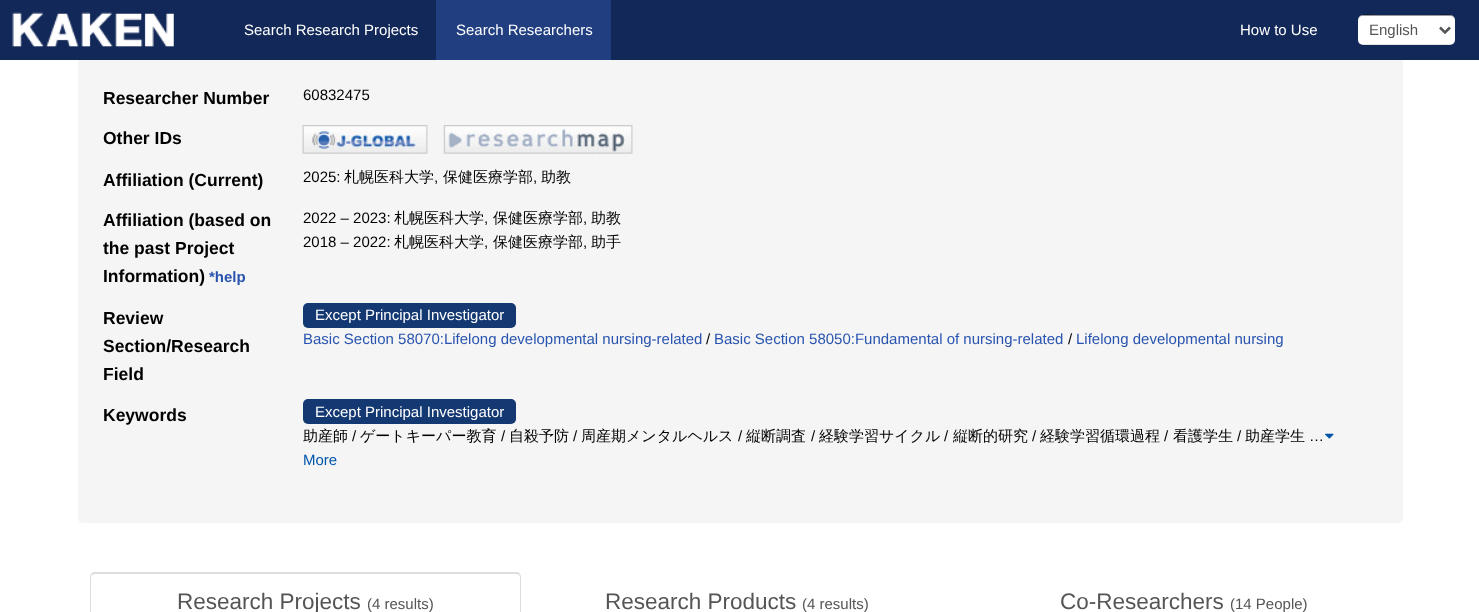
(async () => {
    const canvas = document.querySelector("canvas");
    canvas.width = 1479;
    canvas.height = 612;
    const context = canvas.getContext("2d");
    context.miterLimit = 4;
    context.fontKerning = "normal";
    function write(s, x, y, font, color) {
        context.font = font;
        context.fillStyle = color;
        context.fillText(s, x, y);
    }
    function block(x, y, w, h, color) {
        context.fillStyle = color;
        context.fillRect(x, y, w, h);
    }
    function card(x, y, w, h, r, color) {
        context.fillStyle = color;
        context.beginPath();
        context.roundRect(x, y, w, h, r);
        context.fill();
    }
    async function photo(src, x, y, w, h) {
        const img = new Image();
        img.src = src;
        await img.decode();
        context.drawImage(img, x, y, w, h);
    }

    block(0, 0, 1479, 612, "rgb(255, 255, 255)");
    card(78, -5, 1325, 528, 5, "rgb(245, 245, 245)");
    block(0, 0, 1479, 60, "rgb(18, 40, 88)");
    await photo("media/1.png", 12, 12, 162, 35);
    write("Search Research Projects", 244, 35, "15px Liberation Sans", "rgb(255, 255, 255)");
    block(436, 0, 175, 60, "rgb(32, 62, 128)");
    write("Search Researchers", 456, 35, "15px Liberation Sans", "rgb(255, 255, 255)");
    write("How to Use", 1240, 35, "15px Liberation Sans", "rgb(255, 255, 255)");
    card(1358, 15, 97, 30, 5, "rgb(255, 255, 255)");
    context.fillStyle = "rgba(0, 0, 0, 0.1)";
    context.beginPath();
    context.moveTo(1358, 39);
    context.bezierCurveTo(1358, 49, 1372, 45, 1378, 45);
    context.lineTo(1436, 45);
    context.bezierCurveTo(1441, 45, 1455, 49, 1455, 39);
    context.bezierCurveTo(1455, 42, 1453, 44, 1450, 44);
    context.lineTo(1362, 44);
    context.bezierCurveTo(1360, 44, 1358, 42, 1358, 39);
    context.closePath();
    context.fill();
    context.fillStyle = "rgba(0, 0, 0, 0.4)";
    context.beginPath();
    context.moveTo(1362, 16);
    context.lineTo(1450, 16);
    context.bezierCurveTo(1453, 16, 1455, 18, 1455, 21);
    context.bezierCurveTo(1455, 11, 1441, 15, 1436, 15);
    context.lineTo(1378, 15);
    context.bezierCurveTo(1372, 15, 1358, 11, 1358, 21);
    context.bezierCurveTo(1358, 18, 1360, 16, 1362, 16);
    context.closePath();
    context.fill();
    context.beginPath();
    context.moveTo(1440, 27.5);
    context.lineTo(1445, 32.5);
    context.lineTo(1450, 27.5);
    context.strokeStyle = "rgb(85, 85, 85)";
    context.lineWidth = 2.5;
    context.stroke();
    write("English", 1369, 35, "15px Liberation Sans", "rgb(85, 85, 85)");
    write("Researcher Number", 103, 104, "bold 17.5px Liberation Sans", "rgb(0, 0, 0)");
    write("60832475", 303, 100, "15px Liberation Sans", "rgb(0, 0, 0)");
    write("Other IDs", 103, 144, "bold 17.5px Liberation Sans", "rgb(0, 0, 0)");
    await photo("media/2.png", 302, 125, 126, 29);
    await photo("media/3.png", 443, 125, 190, 29);
    write("Affiliation (Current)", 103, 186, "bold 17.5px Liberation Sans", "rgb(0, 0, 0)");
    write("2025:", 303, 182, "15px Liberation Sans", "rgb(0, 0, 0)");
    write("札幌医科大学", 344, 182, "500 15px WenQuanYi Zen Hei", "rgb(0, 0, 0)");
    write(",", 434, 182, "15px Liberation Sans", "rgb(0, 0, 0)");
    write("保健医療学部", 443, 182, "500 15px WenQuanYi Zen Hei", "rgb(0, 0, 0)");
    write(",", 533, 182, "15px Liberation Sans", "rgb(0, 0, 0)");
    write("助教", 541, 182, "500 15px WenQuanYi Zen Hei", "rgb(0, 0, 0)");
    write("Affiliation (based on", 103, 226, "bold 17.5px Liberation Sans", "rgb(0, 0, 0)");
    write("the past Project", 103, 254, "bold 17.5px Liberation Sans", "rgb(0, 0, 0)");
    write("Information)", 103, 282, "bold 17.5px Liberation Sans", "rgb(0, 0, 0)");
    write("*help", 209, 282, "bold 15px Liberation Sans", "rgb(41, 84, 175)");
    write("2022 – 2023:", 303, 223, "15px Liberation Sans", "rgb(0, 0, 0)");
    write("札幌医科大学", 394, 223, "500 15px WenQuanYi Zen Hei", "rgb(0, 0, 0)");
    write(",", 484, 223, "15px Liberation Sans", "rgb(0, 0, 0)");
    write("保健医療学部", 493, 223, "500 15px WenQuanYi Zen Hei", "rgb(0, 0, 0)");
    write(",", 583, 223, "15px Liberation Sans", "rgb(0, 0, 0)");
    write("助教", 591, 223, "500 15px WenQuanYi Zen Hei", "rgb(0, 0, 0)");
    write("2018 – 2022:", 303, 247, "15px Liberation Sans", "rgb(0, 0, 0)");
    write("札幌医科大学", 394, 247, "500 15px WenQuanYi Zen Hei", "rgb(0, 0, 0)");
    write(",", 484, 247, "15px Liberation Sans", "rgb(0, 0, 0)");
    write("保健医療学部", 493, 247, "500 15px WenQuanYi Zen Hei", "rgb(0, 0, 0)");
    write(",", 583, 247, "15px Liberation Sans", "rgb(0, 0, 0)");
    write("助手", 591, 247, "500 15px WenQuanYi Zen Hei", "rgb(0, 0, 0)");
    write("Review", 103, 324, "bold 17.5px Liberation Sans", "rgb(0, 0, 0)");
    write("Section/Research", 103, 352, "bold 17.5px Liberation Sans", "rgb(0, 0, 0)");
    write("Field", 103, 380, "bold 17.5px Liberation Sans", "rgb(0, 0, 0)");
    card(303, 303, 213, 25, 5, "rgb(20, 56, 114)");
    write("Except Principal Investigator", 315, 320, "15px Liberation Sans", "rgb(255, 255, 255)");
    write("Basic Section 58070:Lifelong developmental nursing-related", 303, 344, "15px Liberation Sans", "rgb(41, 84, 175)");
    write("/", 706, 344, "15px Liberation Sans", "rgb(0, 0, 0)");
    write("Basic Section 58050:Fundamental of nursing-related", 714, 344, "15px Liberation Sans", "rgb(41, 84, 175)");
    write("/", 1068, 344, "15px Liberation Sans", "rgb(0, 0, 0)");
    write("Lifelong developmental nursing", 1076, 344, "15px Liberation Sans", "rgb(41, 84, 175)");
    write("Keywords", 103, 421, "bold 17.5px Liberation Sans", "rgb(0, 0, 0)");
    card(303, 399, 213, 25, 5, "rgb(20, 56, 114)");
    write("Except Principal Investigator", 315, 417, "15px Liberation Sans", "rgb(255, 255, 255)");
    write("助産師", 303, 441, "500 15px WenQuanYi Zen Hei", "rgb(0, 0, 0)");
    write("/", 352, 441, "15px Liberation Sans", "rgb(0, 0, 0)");
    write("ゲートキーパー教育", 360, 441, "500 15px WenQuanYi Zen Hei", "rgb(0, 0, 0)");
    write("/", 501, 441, "15px Liberation Sans", "rgb(0, 0, 0)");
    write("自殺予防", 509, 441, "500 15px WenQuanYi Zen Hei", "rgb(0, 0, 0)");
    write("/", 573, 441, "15px Liberation Sans", "rgb(0, 0, 0)");
    write("周産期メンタルヘルス", 581, 441, "500 15px WenQuanYi Zen Hei", "rgb(0, 0, 0)");
    write("/", 738, 441, "15px Liberation Sans", "rgb(0, 0, 0)");
    write("縦断調査", 746, 441, "500 15px WenQuanYi Zen Hei", "rgb(0, 0, 0)");
    write("/", 811, 441, "15px Liberation Sans", "rgb(0, 0, 0)");
    write("経験学習サイクル", 819, 441, "500 15px WenQuanYi Zen Hei", "rgb(0, 0, 0)");
    write("/", 944, 441, "15px Liberation Sans", "rgb(0, 0, 0)");
    write("縦断的研究", 953, 441, "500 15px WenQuanYi Zen Hei", "rgb(0, 0, 0)");
    write("/", 1032, 441, "15px Liberation Sans", "rgb(0, 0, 0)");
    write("経験学習循環過程", 1040, 441, "500 15px WenQuanYi Zen Hei", "rgb(0, 0, 0)");
    write("/", 1164, 441, "15px Liberation Sans", "rgb(0, 0, 0)");
    write("看護学生", 1173, 441, "500 15px WenQuanYi Zen Hei", "rgb(0, 0, 0)");
    write("/", 1237, 441, "15px Liberation Sans", "rgb(0, 0, 0)");
    write("助産学生", 1245, 441, "500 15px WenQuanYi Zen Hei", "rgb(0, 0, 0)");
    write("…", 1309, 441, "15px Liberation Sans", "rgb(0, 0, 0)");
    await photo("media/4.png", 1325, 433, 9, 6);
    write("More", 303, 465, "15px Liberation Sans", "rgb(0, 85, 170)");
    context.fillStyle = "rgb(221, 221, 221)";
    context.beginPath();
    context.moveTo(95, 574);
    context.lineTo(92, 575);
    context.lineTo(91, 574);
    context.lineTo(93, 572);
    context.lineTo(518, 572);
    context.lineTo(520, 574);
    context.lineTo(519, 575);
    context.lineTo(516, 574);
    context.closePath();
    context.fill();
    context.beginPath();
    context.moveTo(520, 574);
    context.bezierCurveTo(521, 575, 521, 577, 521, 578);
    context.lineTo(521, 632);
    context.lineTo(520, 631);
    context.lineTo(520, 577);
    context.lineTo(519, 575);
    context.closePath();
    context.fill();
    context.beginPath();
    context.moveTo(90, 578);
    context.lineTo(90, 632);
    context.lineTo(92, 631);
    context.lineTo(91, 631);
    context.lineTo(91, 577);
    context.lineTo(92, 575);
    context.lineTo(91, 574);
    context.bezierCurveTo(90, 575, 90, 576, 90, 578);
    context.closePath();
    context.fill();
    write("Research Projects", 177, 609, "22.5px Liberation Sans", "rgb(85, 85, 85)");
    write("(4 results)", 367, 609, "15px Liberation Sans", "rgb(85, 85, 85)");
    write("Research Products", 605, 609, "22.5px Liberation Sans", "rgb(85, 85, 85)");
    write("(4 results)", 802, 609, "15px Liberation Sans", "rgb(85, 85, 85)");
    write("Co-Researchers", 1060, 609, "22.5px Liberation Sans", "rgb(85, 85, 85)");
    write("(14 People)", 1230, 609, "15px Liberation Sans", "rgb(85, 85, 85)");
})();
